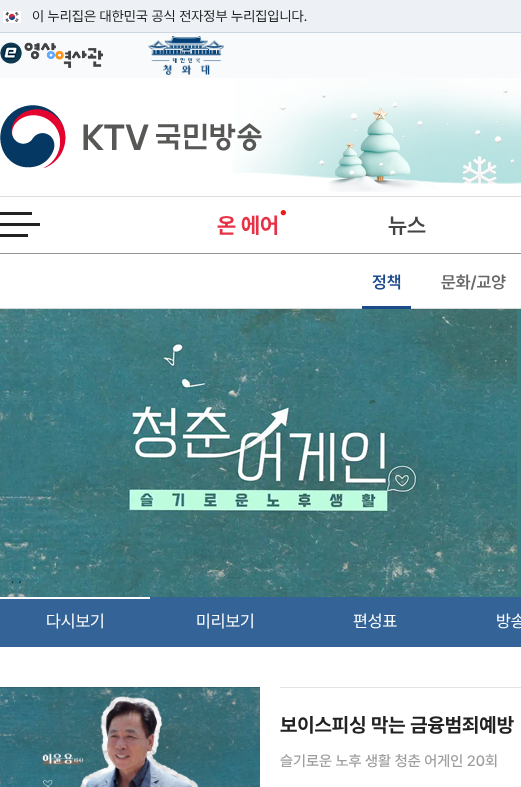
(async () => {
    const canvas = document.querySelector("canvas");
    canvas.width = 521;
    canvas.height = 787;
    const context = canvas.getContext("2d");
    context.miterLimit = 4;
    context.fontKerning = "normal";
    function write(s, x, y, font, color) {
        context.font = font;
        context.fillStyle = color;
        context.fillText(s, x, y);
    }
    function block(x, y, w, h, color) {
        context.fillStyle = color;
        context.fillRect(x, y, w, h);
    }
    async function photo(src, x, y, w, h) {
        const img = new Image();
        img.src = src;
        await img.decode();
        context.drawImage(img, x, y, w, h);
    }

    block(0, 0, 521, 787, "rgb(255, 255, 255)");
    block(0, 0, 521, 32, "rgb(237, 241, 245)");
    await photo("media/1.png", 3, 11, 18, 12);
    write("이 누리집은 대한민국 공식 전자정부 누리집입니다.", 32, 21, "14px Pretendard", "rgb(34, 34, 34)");
    block(0, 32, 521, 1, "rgb(205, 215, 228)");
    block(0, 33, 521, 45, "rgb(249, 250, 251)");
    await photo("media/2.png", 0, 42, 103, 26);
    await photo("media/3.png", 148, 36, 77, 39);
    await photo("media/5.png", 232, 78, 289, 114);
    await photo("media/4.png", 0, 105, 262, 63);
    block(0, 212, 32, 3, "rgb(34, 34, 34)");
    block(0, 223, 40, 3, "rgb(34, 34, 34)");
    block(0, 234, 28, 3, "rgb(34, 34, 34)");
    block(0, 196, 521, 1, "rgb(222, 222, 222)");
    await photo("media/6.png", 280, 210, 6, 6);
    write("온 에어", 217, 233, "bold 22px Pretendard", "rgb(230, 50, 70)");
    write("뉴스", 388, 233, "600 22px Pretendard", "rgb(69, 69, 69)");
    write("정책", 372, 288, "600 17px Pretendard", "rgb(28, 75, 139)");
    block(0, 308, 521, 1, "rgb(215, 217, 219)");
    block(362, 306, 49, 3, "rgb(28, 75, 139)");
    write("문화/교양", 441, 288, "600 17px Pretendard", "rgb(103, 103, 103)");
    block(0, 253, 521, 1, "rgb(149, 149, 149)");
    block(517, 309, 4, 288, "rgb(59, 124, 128)");
    await photo("media/7.png", 0, 309, 517, 288);
    block(0, 597, 521, 50, "rgb(52, 100, 151)");
    block(0, 597, 150, 2, "rgb(255, 255, 255)");
    write("다시보기", 46, 627, "17px Pretendard", "rgb(255, 255, 255)");
    write("미리보기", 196, 627, "17px Pretendard", "rgb(255, 255, 255)");
    write("편성표", 353, 627, "17px Pretendard", "rgb(255, 255, 255)");
    write("방송", 496, 627, "17px Pretendard", "rgb(255, 255, 255)");
    await photo("media/8.png", 0, 687, 260, 100);
    block(280, 687, 241, 1, "rgb(227, 227, 227)");
    write("보이스피싱 막는 금융범죄예방", 280, 732, "bold 20px Pretendard", "rgb(34, 34, 34)");
    write("슬기로운 노후 생활 청춘 어게인 20회", 280, 766, "500 15px Pretendard", "rgb(158, 158, 158)");
})();
